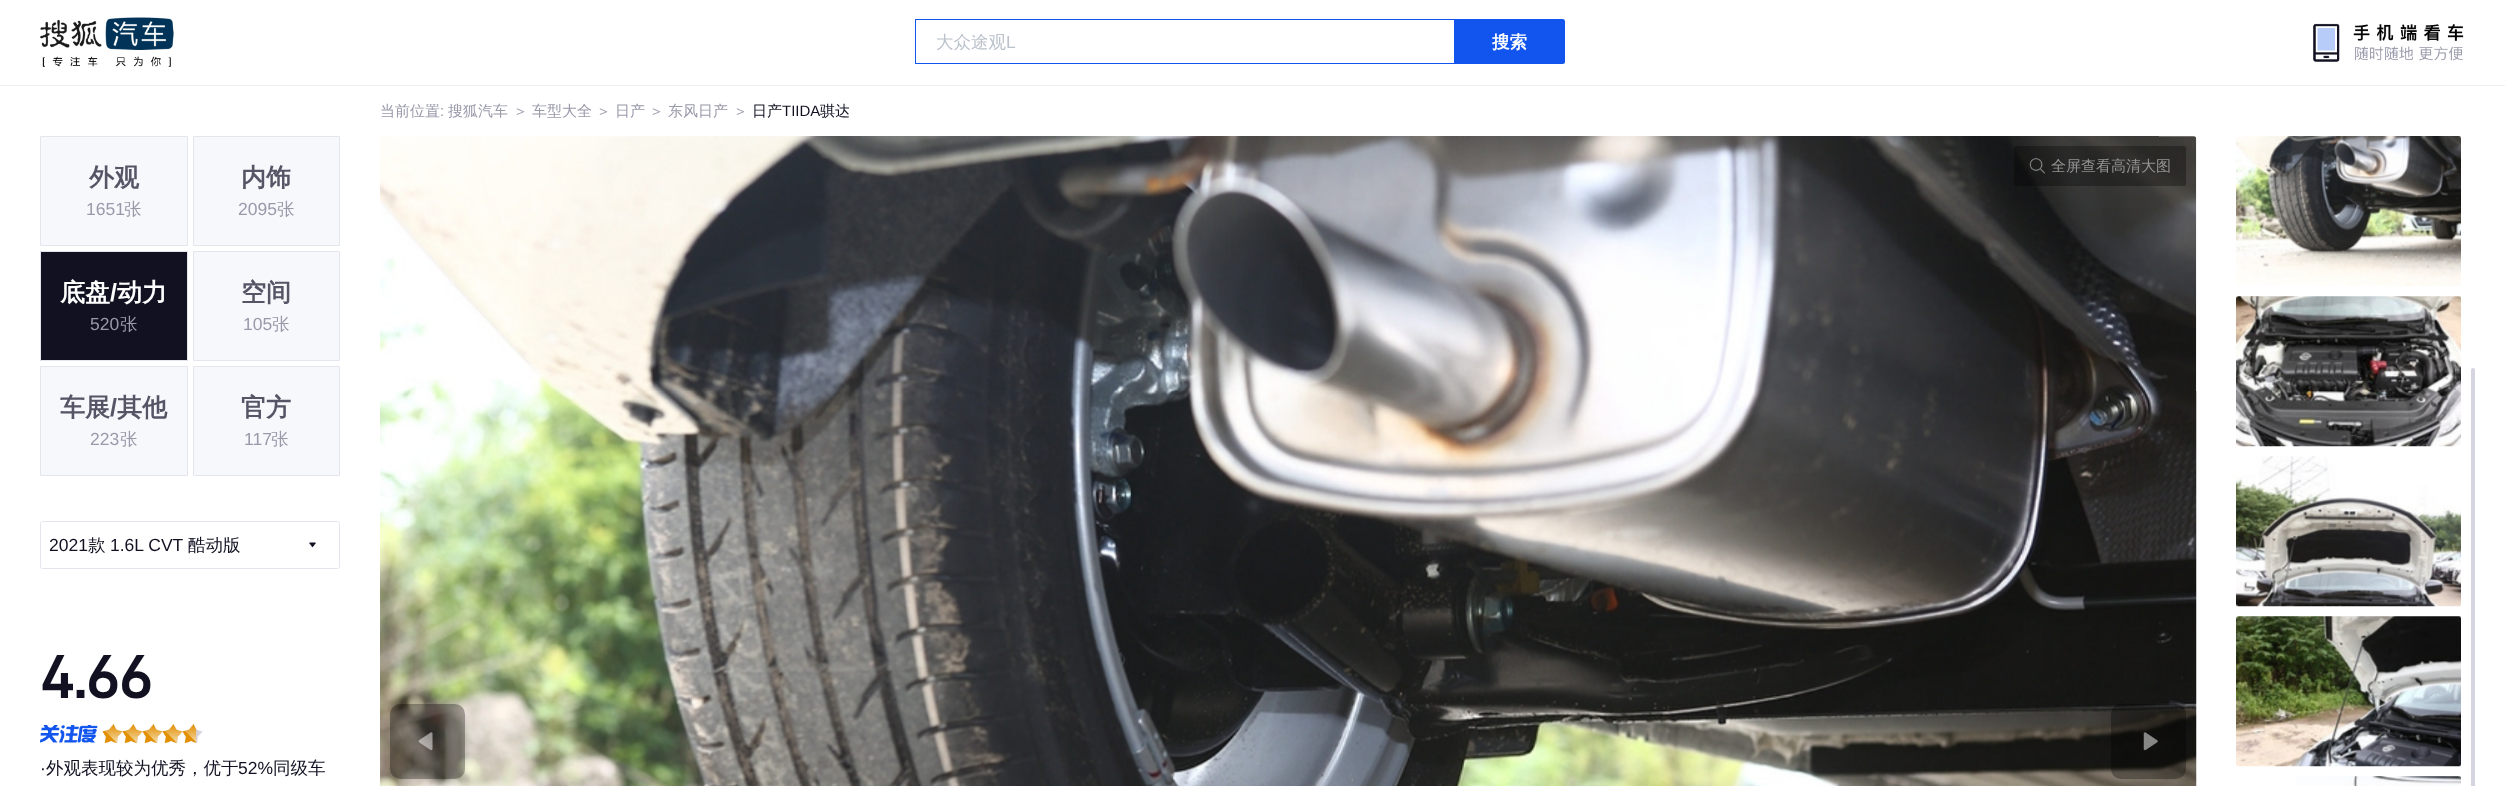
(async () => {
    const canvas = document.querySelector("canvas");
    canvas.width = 2505;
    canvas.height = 786;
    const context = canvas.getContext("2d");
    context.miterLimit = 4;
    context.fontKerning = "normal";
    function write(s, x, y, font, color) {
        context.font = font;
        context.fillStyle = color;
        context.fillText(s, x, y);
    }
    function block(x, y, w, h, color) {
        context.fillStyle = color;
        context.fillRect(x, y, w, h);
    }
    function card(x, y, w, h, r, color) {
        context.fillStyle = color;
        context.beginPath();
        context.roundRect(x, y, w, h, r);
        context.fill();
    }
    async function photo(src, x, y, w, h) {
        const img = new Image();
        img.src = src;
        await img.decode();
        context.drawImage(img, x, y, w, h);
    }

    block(0, 0, 2505, 786, "rgb(255, 255, 255)");
    block(0, 85, 2505, 1, "rgb(238, 238, 240)");
    await photo("media/1.png", 40, 17, 134, 50);
    context.strokeStyle = "rgb(17, 85, 238)";
    context.strokeRect(915.5, 19.5, 539, 44);
    write("大众途观", 936, 48, "500 17.5px WenQuanYi Zen Hei", "rgb(187, 194, 204)");
    write("L", 1006, 48, "17.5px Liberation Sans", "rgb(187, 194, 204)");
    context.fillStyle = "rgb(17, 85, 238)";
    context.beginPath();
    context.roundRect(1455, 19, 110, 45, [0, 2.5, 2.5, 0]);
    context.fill();
    write("搜索", 1492, 48, "bold 17.5px WenQuanYi Zen Hei", "rgb(255, 255, 255)");
    await photo("media/2.png", 2313, 23, 151, 39);
    write("当前位置", 380, 116, "500 15px WenQuanYi Zen Hei", "rgb(153, 153, 170)");
    write(":", 440, 116, "15px Liberation Sans", "rgb(153, 153, 170)");
    write("搜狐汽车", 448, 116, "500 15px WenQuanYi Zen Hei", "rgb(153, 153, 170)");
    write("＞", 513, 116, "500 15px WenQuanYi Zen Hei", "rgb(153, 153, 170)");
    write("车型大全", 532, 116, "500 15px WenQuanYi Zen Hei", "rgb(153, 153, 170)");
    write("＞", 596, 116, "500 15px WenQuanYi Zen Hei", "rgb(153, 153, 170)");
    write("日产", 615, 116, "500 15px WenQuanYi Zen Hei", "rgb(153, 153, 170)");
    write("＞", 649, 116, "500 15px WenQuanYi Zen Hei", "rgb(153, 153, 170)");
    write("东风日产", 668, 116, "500 15px WenQuanYi Zen Hei", "rgb(153, 153, 170)");
    write("＞", 733, 116, "500 15px WenQuanYi Zen Hei", "rgb(153, 153, 170)");
    write("日产", 752, 116, "500 15px WenQuanYi Zen Hei", "rgb(17, 17, 34)");
    write("TIIDA", 782, 116, "15px Liberation Sans", "rgb(17, 17, 34)");
    write("骐达", 820, 116, "500 15px WenQuanYi Zen Hei", "rgb(17, 17, 34)");
    context.fillStyle = "rgb(247, 248, 252)";
    context.beginPath();
    context.rect(40.5, 136.5, 147, 109);
    context.fill();
    context.strokeStyle = "rgb(229, 229, 238)";
    context.stroke();
    write("外观", 89, 186, "bold 25px WenQuanYi Zen Hei", "rgb(85, 85, 102)");
    write("1651", 86, 215, "17.5px Liberation Sans", "rgb(153, 153, 170)");
    write("张", 124, 215, "500 17.5px WenQuanYi Zen Hei", "rgb(153, 153, 170)");
    context.fillStyle = "rgb(247, 248, 252)";
    context.beginPath();
    context.rect(193.5, 136.5, 146, 109);
    context.fill();
    context.stroke();
    write("内饰", 241, 186, "bold 25px WenQuanYi Zen Hei", "rgb(85, 85, 102)");
    write("2095", 238, 215, "17.5px Liberation Sans", "rgb(153, 153, 170)");
    write("张", 277, 215, "500 17.5px WenQuanYi Zen Hei", "rgb(153, 153, 170)");
    context.fillStyle = "rgb(17, 17, 34)";
    context.beginPath();
    context.rect(40.5, 251.5, 147, 109);
    context.fill();
    context.stroke();
    write("底盘", 60, 301, "bold 25px WenQuanYi Zen Hei", "rgb(255, 255, 255)");
    write("/", 110, 301, "bold 25px Liberation Sans", "rgb(255, 255, 255)");
    write("动力", 117, 301, "bold 25px WenQuanYi Zen Hei", "rgb(255, 255, 255)");
    write("520", 90, 330, "17.5px Liberation Sans", "rgb(153, 153, 170)");
    write("张", 120, 330, "500 17.5px WenQuanYi Zen Hei", "rgb(153, 153, 170)");
    context.fillStyle = "rgb(247, 248, 252)";
    context.beginPath();
    context.rect(193.5, 251.5, 146, 109);
    context.fill();
    context.stroke();
    write("空间", 241, 301, "bold 25px WenQuanYi Zen Hei", "rgb(85, 85, 102)");
    write("105", 243, 330, "17.5px Liberation Sans", "rgb(153, 153, 170)");
    write("张", 272, 330, "500 17.5px WenQuanYi Zen Hei", "rgb(153, 153, 170)");
    context.fillStyle = "rgb(247, 248, 252)";
    context.beginPath();
    context.rect(40.5, 366.5, 147, 109);
    context.fill();
    context.stroke();
    write("车展", 60, 416, "bold 25px WenQuanYi Zen Hei", "rgb(85, 85, 102)");
    write("/", 110, 416, "bold 25px Liberation Sans", "rgb(85, 85, 102)");
    write("其他", 117, 416, "bold 25px WenQuanYi Zen Hei", "rgb(85, 85, 102)");
    write("223", 90, 445, "17.5px Liberation Sans", "rgb(153, 153, 170)");
    write("张", 120, 445, "500 17.5px WenQuanYi Zen Hei", "rgb(153, 153, 170)");
    context.fillStyle = "rgb(247, 248, 252)";
    context.beginPath();
    context.rect(193.5, 366.5, 146, 109);
    context.fill();
    context.stroke();
    write("官方", 241, 416, "bold 25px WenQuanYi Zen Hei", "rgb(85, 85, 102)");
    write("117", 244, 445, "17.5px Liberation Sans", "rgb(153, 153, 170)");
    write("张", 271, 445, "500 17.5px WenQuanYi Zen Hei", "rgb(153, 153, 170)");
    context.beginPath();
    context.roundRect(40.5, 521.5, 299, 47, 2);
    context.stroke();
    write("2021", 49, 551, "17.5px Liberation Sans", "rgb(17, 17, 34)");
    write("款", 88, 551, "500 17.5px WenQuanYi Zen Hei", "rgb(17, 17, 34)");
    write("1.6L CVT", 110, 551, "17.5px Liberation Sans", "rgb(17, 17, 34)");
    write("酷动版", 188, 551, "500 17.5px WenQuanYi Zen Hei", "rgb(17, 17, 34)");
    await photo("media/3.png", 309, 542, 7, 6);
    write("4.66", 40, 698, "bold 60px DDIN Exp", "rgb(17, 17, 34)");
    await photo("media/4.png", 40, 725, 58, 18);
    await photo("media/5.png", 102, 724, 21, 19);
    await photo("media/9.png", 122, 724, 21, 19);
    await photo("media/6.png", 102, 724, 21, 19);
    await photo("media/9.png", 142, 724, 21, 19);
    await photo("media/7.png", 122, 724, 21, 19);
    await photo("media/9.png", 162, 724, 21, 19);
    await photo("media/7.png", 142, 724, 21, 19);
    await photo("media/9.png", 182, 724, 21, 19);
    await photo("media/7.png", 162, 724, 21, 19);
    await photo("media/8.png", 182, 724, 15, 19);
    write("·", 40, 774, "17.5px Liberation Sans", "rgb(17, 17, 34)");
    write("外观表现较为优秀，优于", 46, 774, "500 17.5px WenQuanYi Zen Hei", "rgb(17, 17, 34)");
    write("52%", 238, 774, "17.5px Liberation Sans", "rgb(17, 17, 34)");
    write("同级车", 273, 774, "500 17.5px WenQuanYi Zen Hei", "rgb(17, 17, 34)");
    await photo("media/10.png", 380, 136, 1817, 650);
    card(2014, 146, 172, 40, 2.5, "rgba(0, 0, 0, 0.3)");
    await photo("media/11.png", 2029, 158, 16, 16);
    write("全屏查看高清大图", 2051, 171, "500 15px WenQuanYi Zen Hei", "rgb(149, 148, 148)");
    card(390, 704, 75, 75, 10, "rgba(0, 0, 0, 0.3)");
    await photo("media/12.png", 418, 732, 15, 19);
    card(2111, 704, 75, 75, 10, "rgba(0, 0, 0, 0.3)");
    await photo("media/13.png", 2143, 732, 15, 19);
    await photo("media/14.png", 2236, 136, 225, 150);
    await photo("media/15.png", 2236, 296, 225, 151);
    await photo("media/16.png", 2236, 456, 225, 151);
    await photo("media/17.png", 2236, 616, 225, 151);
    await photo("media/18.png", 2296, 776, 165, 10);
    card(2471, 368, 4, 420, 2, "rgb(213, 213, 226)");
})();
